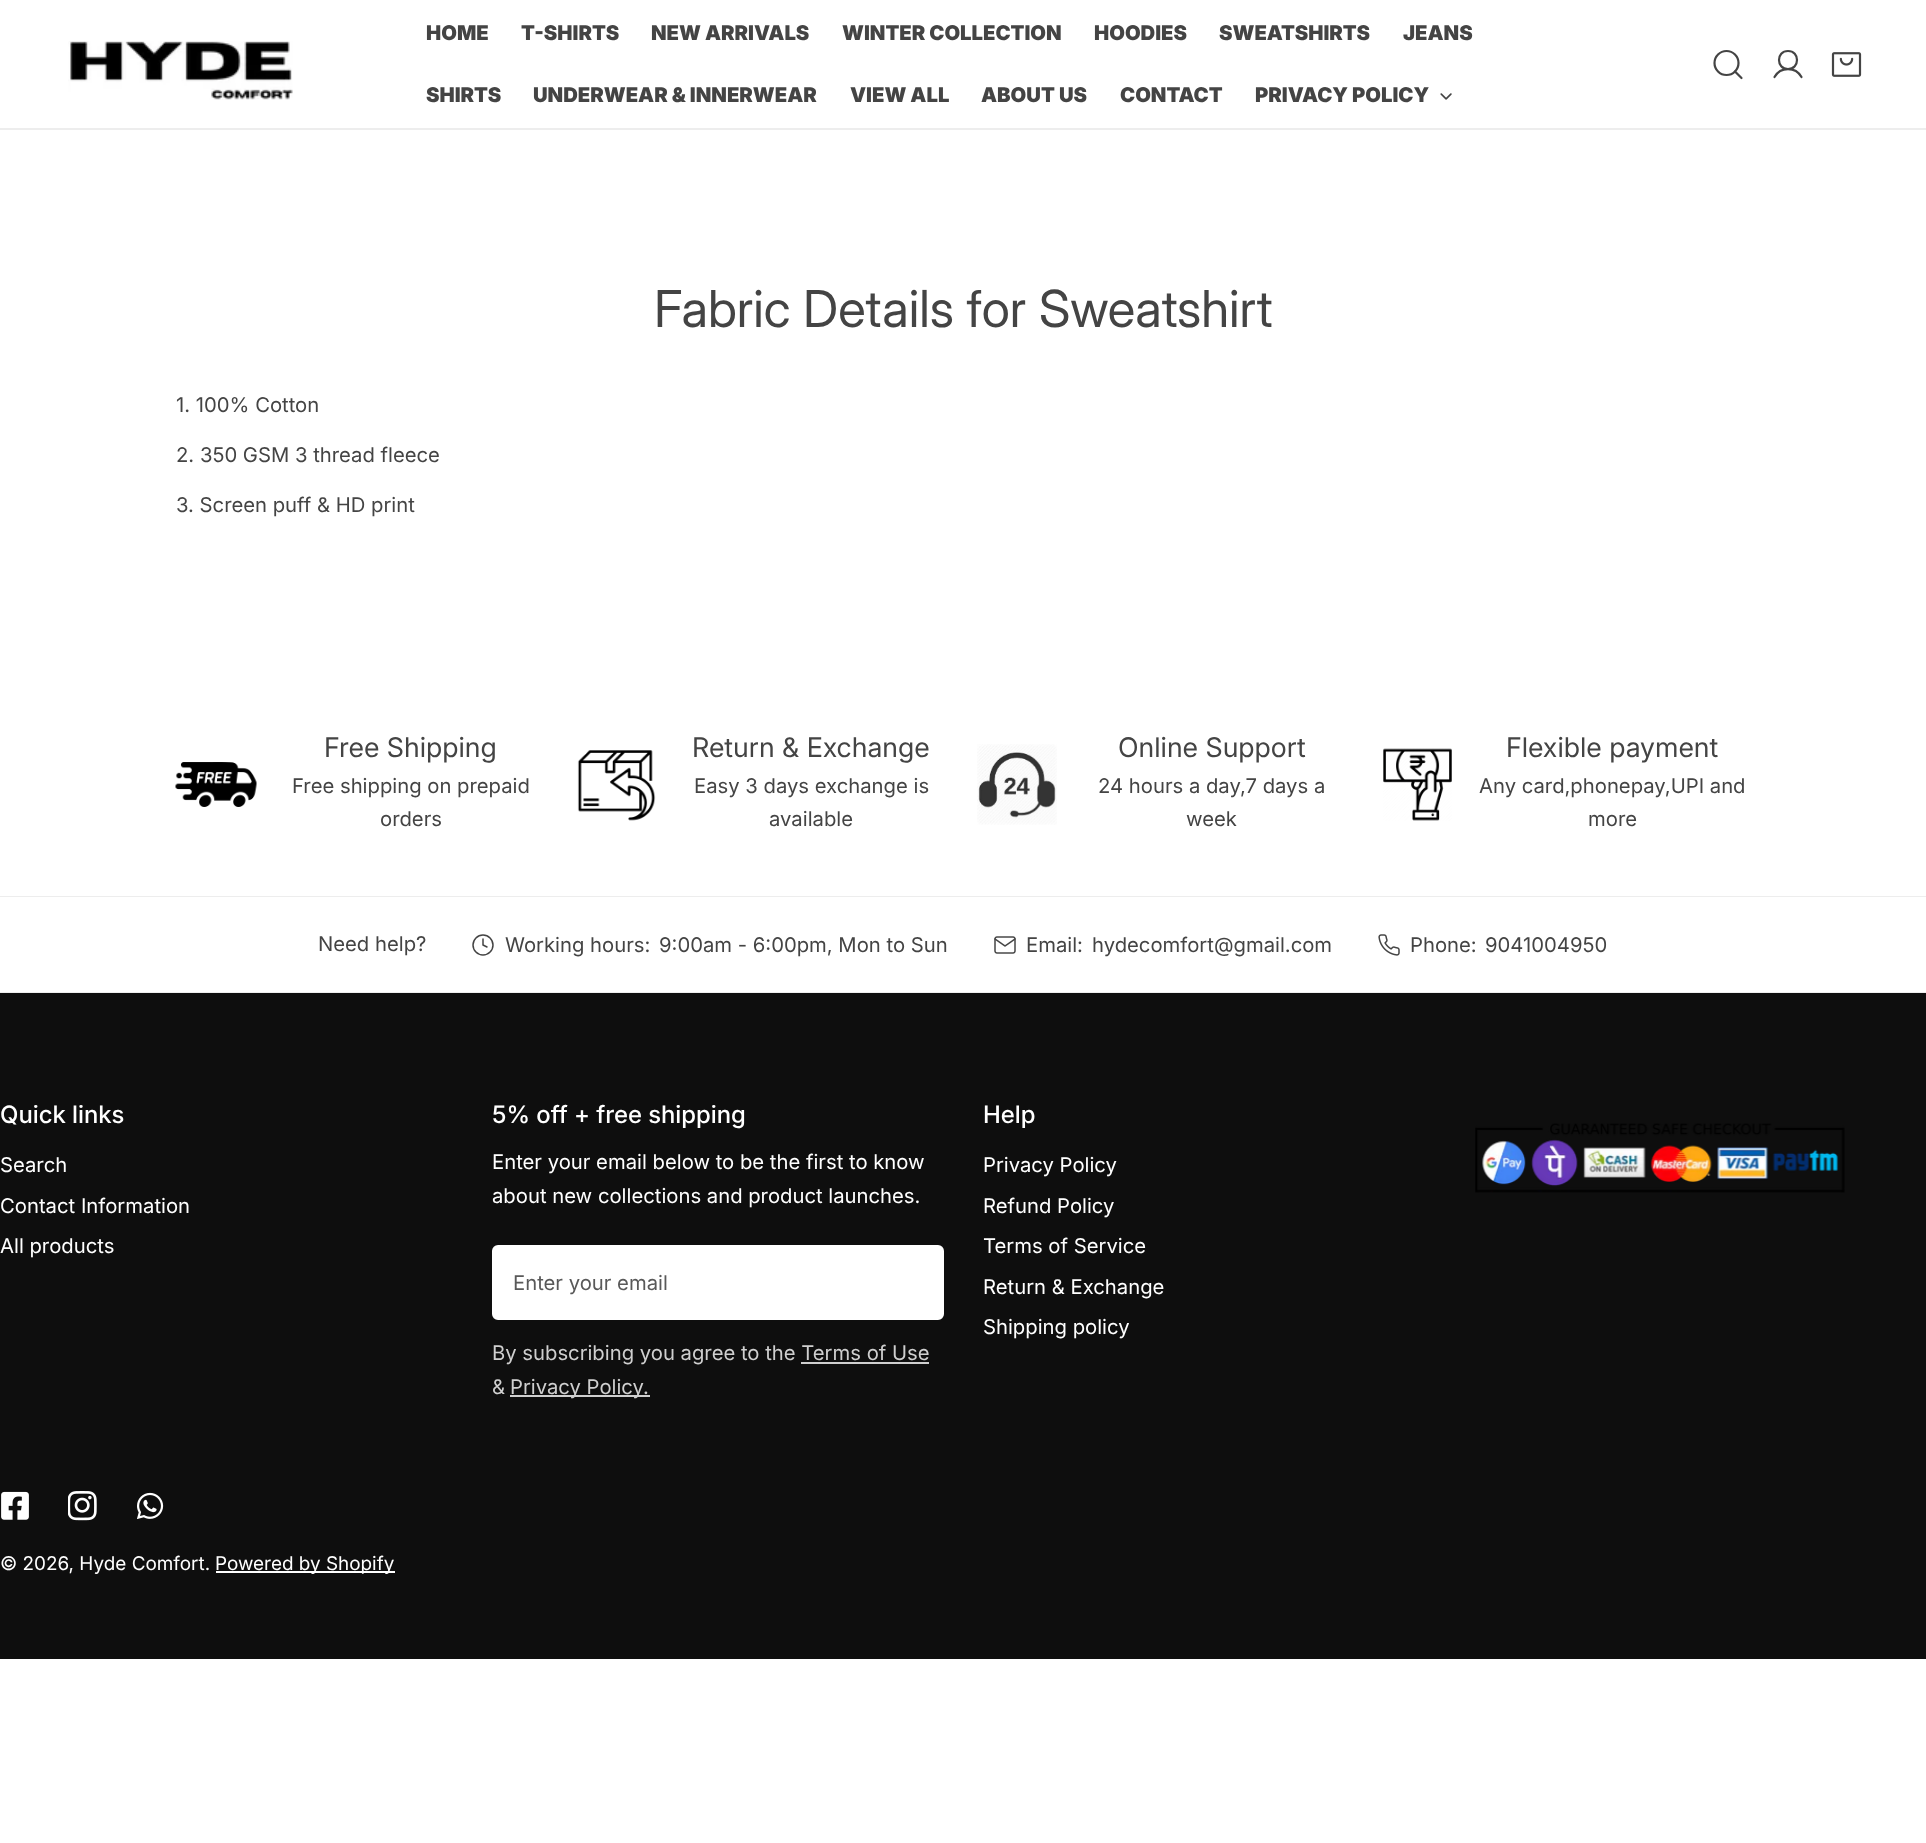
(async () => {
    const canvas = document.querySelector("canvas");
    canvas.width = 1926;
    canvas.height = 1843;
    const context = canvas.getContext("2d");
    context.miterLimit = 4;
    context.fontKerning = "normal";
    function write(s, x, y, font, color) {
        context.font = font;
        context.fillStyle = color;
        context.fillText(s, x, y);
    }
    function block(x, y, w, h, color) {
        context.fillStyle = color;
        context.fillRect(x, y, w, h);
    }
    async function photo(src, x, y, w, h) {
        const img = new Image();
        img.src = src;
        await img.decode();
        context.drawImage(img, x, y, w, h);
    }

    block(0, 0, 1926, 1843, "rgb(255, 255, 255)");
    block(0, 128, 1926, 2, "rgb(237, 237, 237)");
    await photo("media/1.png", 68, 41, 225, 59);
    write("HOME", 426, 40, "900 20.25px Inter", "rgb(68, 68, 68)");
    write("T-SHIRTS", 521, 40, "900 20.25px Inter", "rgb(68, 68, 68)");
    write("NEW ARRIVALS", 651, 40, "900 20.25px Inter", "rgb(68, 68, 68)");
    write("WINTER COLLECTION", 842, 40, "900 20.25px Inter", "rgb(68, 68, 68)");
    write("HOODIES", 1094, 40, "900 20.25px Inter", "rgb(68, 68, 68)");
    write("SWEATSHIRTS", 1219, 40, "900 20.25px Inter", "rgb(68, 68, 68)");
    write("JEANS", 1403, 40, "900 20.25px Inter", "rgb(68, 68, 68)");
    write("SHIRTS", 426, 102, "900 20.25px Inter", "rgb(68, 68, 68)");
    write("UNDERWEAR & INNERWEAR", 533, 102, "900 20.25px Inter", "rgb(68, 68, 68)");
    write("VIEW ALL", 850, 102, "900 20.25px Inter", "rgb(68, 68, 68)");
    write("ABOUT US", 981, 102, "900 20.25px Inter", "rgb(68, 68, 68)");
    write("CONTACT", 1120, 102, "900 20.25px Inter", "rgb(68, 68, 68)");
    write("PRIVACY POLICY", 1255, 102, "900 20.25px Inter", "rgb(68, 68, 68)");
    await photo("media/2.png", 1440, 93, 12, 7);
    context.beginPath();
    context.arc(1726.5, 63, 12, 0, Math.PI * 2);
    context.strokeStyle = "rgb(68, 68, 68)";
    context.lineWidth = 2.2;
    context.stroke();
    context.beginPath();
    context.moveTo(1741.5, 78);
    context.lineTo(1735, 71.5);
    context.lineCap = "round";
    context.lineJoin = "round";
    context.stroke();
    context.beginPath();
    context.moveTo(1788, 69);
    context.bezierCurveTo(1800, 69, 1800, 51, 1788, 51);
    context.bezierCurveTo(1776, 51, 1776, 69, 1788, 69);
    context.closePath();
    context.moveTo(1774.5, 77);
    context.bezierCurveTo(1780.5, 66.5, 1795.5, 66.5, 1801.5, 77);
    context.stroke();
    await photo("media/3.png", 1831, 52, 31, 25);
    write("Fabric Details for Sweatshirt", 654, 327, "51px Inter", "rgb(68, 68, 68)");
    write("1. 100% Cotton", 176, 412, "20.25px 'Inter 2'", "rgb(68, 68, 68)");
    write("2. 350 GSM 3 thread fleece", 176, 462, "20.25px 'Inter 2'", "rgb(68, 68, 68)");
    write("3. Screen puff & HD print", 176, 512, "20.25px 'Inter 2'", "rgb(68, 68, 68)");
    await photo("media/4.png", 175, 762, 82, 45);
    write("Free Shipping", 324, 757, "27px 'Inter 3'", "rgb(68, 68, 68)");
    write("Free shipping on prepaid", 292, 793, "20.25px 'Inter 2'", "rgb(68, 68, 68)");
    write("orders", 380, 826, "20.25px 'Inter 2'", "rgb(68, 68, 68)");
    await photo("media/5.png", 577, 750, 79, 71);
    write("Return & Exchange", 692, 757, "27px 'Inter 3'", "rgb(68, 68, 68)");
    write("Easy 3 days exchange is", 694, 793, "20.25px 'Inter 2'", "rgb(68, 68, 68)");
    write("available", 769, 826, "20.25px 'Inter 2'", "rgb(68, 68, 68)");
    await photo("media/6.png", 977, 744, 80, 81);
    write("Online Support", 1118, 757, "27px 'Inter 3'", "rgb(68, 68, 68)");
    write("24 hours a day,7 days a", 1098, 793, "20.25px 'Inter 2'", "rgb(68, 68, 68)");
    write("week", 1186, 826, "20.25px 'Inter 2'", "rgb(68, 68, 68)");
    await photo("media/7.png", 1383, 748, 69, 73);
    write("Flexible payment", 1506, 757, "27px 'Inter 3'", "rgb(68, 68, 68)");
    write("Any card,phonepay,UPI and", 1479, 793, "20.25px 'Inter 2'", "rgb(68, 68, 68)");
    write("more", 1588, 826, "20.25px 'Inter 2'", "rgb(68, 68, 68)");
    block(0, 896, 1926, 1, "rgb(237, 237, 237)");
    block(0, 992, 1926, 1, "rgb(237, 237, 237)");
    write("Need help?", 318, 951, "20.25px 'Inter 2'", "rgb(68, 68, 68)");
    context.beginPath();
    context.arc(483, 945, 10, 0, Math.PI * 2);
    context.lineWidth = 1.5;
    context.stroke();
    context.beginPath();
    context.moveTo(483, 939);
    context.lineTo(483, 945);
    context.lineTo(487, 947);
    context.stroke();
    write("Working hours:", 505, 952, "20.25px 'Inter 2'", "rgb(68, 68, 68)");
    write("9:00am - 6:00pm, Mon to Sun", 659, 952, "20.25px 'Inter 2'", "rgb(68, 68, 68)");
    await photo("media/8.png", 994, 936, 22, 18);
    write("Email:", 1026, 952, "20.25px 'Inter 2'", "rgb(68, 68, 68)");
    write("hydecomfort@gmail.com", 1092, 952, "20.25px 'Inter 2'", "rgb(68, 68, 68)");
    await photo("media/9.png", 1378, 934, 22, 22);
    write("Phone:", 1410, 952, "20.25px 'Inter 2'", "rgb(68, 68, 68)");
    write("9041004950", 1485, 952, "20.25px 'Inter 2'", "rgb(68, 68, 68)");
    block(0, 993, 1926, 666, "rgb(14, 14, 14)");
    write("Quick links", 0, 1123, "500 24px Inter", "rgb(255, 255, 255)");
    write("Search", 0, 1172, "20.25px 'Inter 2'", "rgb(255, 255, 255)");
    write("Contact Information", 0, 1213, "20.25px 'Inter 2'", "rgb(255, 255, 255)");
    write("All products", 0, 1253, "20.25px 'Inter 2'", "rgb(255, 255, 255)");
    write("5% off + free shipping", 492, 1123, "500 24px Inter", "rgb(255, 255, 255)");
    write("Enter your email below to be the first to know", 492, 1169, "20.25px 'Inter 2'", "rgb(255, 255, 255)");
    write("about new collections and product launches.", 492, 1203, "20.25px 'Inter 2'", "rgb(255, 255, 255)");
    context.beginPath();
    context.roundRect(493, 1246, 450, 73, 5);
    context.fill();
    context.strokeStyle = "rgb(255, 255, 255)";
    context.lineWidth = 2;
    context.lineJoin = "miter";
    context.stroke();
    write("Enter your email", 513, 1290, "20.25px 'Inter 2'", "rgb(89, 89, 89)");
    write("By subscribing you agree to the Terms of Use", 492, 1360, "20.25px 'Inter 2'", "rgb(207, 207, 207)");
    block(801, 1362, 128, 2, "rgb(207, 207, 207)");
    write("&", 492, 1394, "20.25px 'Inter 2'", "rgb(207, 207, 207)");
    block(510, 1395, 140, 2, "rgb(207, 207, 207)");
    write("Privacy Policy.", 510, 1394, "20.25px 'Inter 2'", "rgb(207, 207, 207)");
    write("Help", 983, 1123, "500 24px Inter", "rgb(255, 255, 255)");
    write("Privacy Policy", 983, 1172, "20.25px 'Inter 2'", "rgb(255, 255, 255)");
    write("Refund Policy", 983, 1213, "20.25px 'Inter 2'", "rgb(255, 255, 255)");
    write("Terms of Service", 983, 1253, "20.25px 'Inter 2'", "rgb(255, 255, 255)");
    write("Return & Exchange", 983, 1294, "20.25px 'Inter 2'", "rgb(255, 255, 255)");
    write("Shipping policy", 983, 1334, "20.25px 'Inter 2'", "rgb(255, 255, 255)");
    await photo("media/10.png", 1475, 1123, 370, 70);
    await photo("media/11.png", 1, 1491, 28, 29);
    await photo("media/12.png", 68, 1491, 29, 30);
    await photo("media/13.png", 137, 1492, 27, 27);
    write("© 2026, Hyde Comfort.", 0, 1570, "18.9px 'Inter 2'", "rgb(255, 255, 255)");
    block(216, 1571, 179, 2, "rgb(255, 255, 255)");
    write("Powered by Shopify", 215, 1570, "18.9px 'Inter 2'", "rgb(255, 255, 255)");
})();
